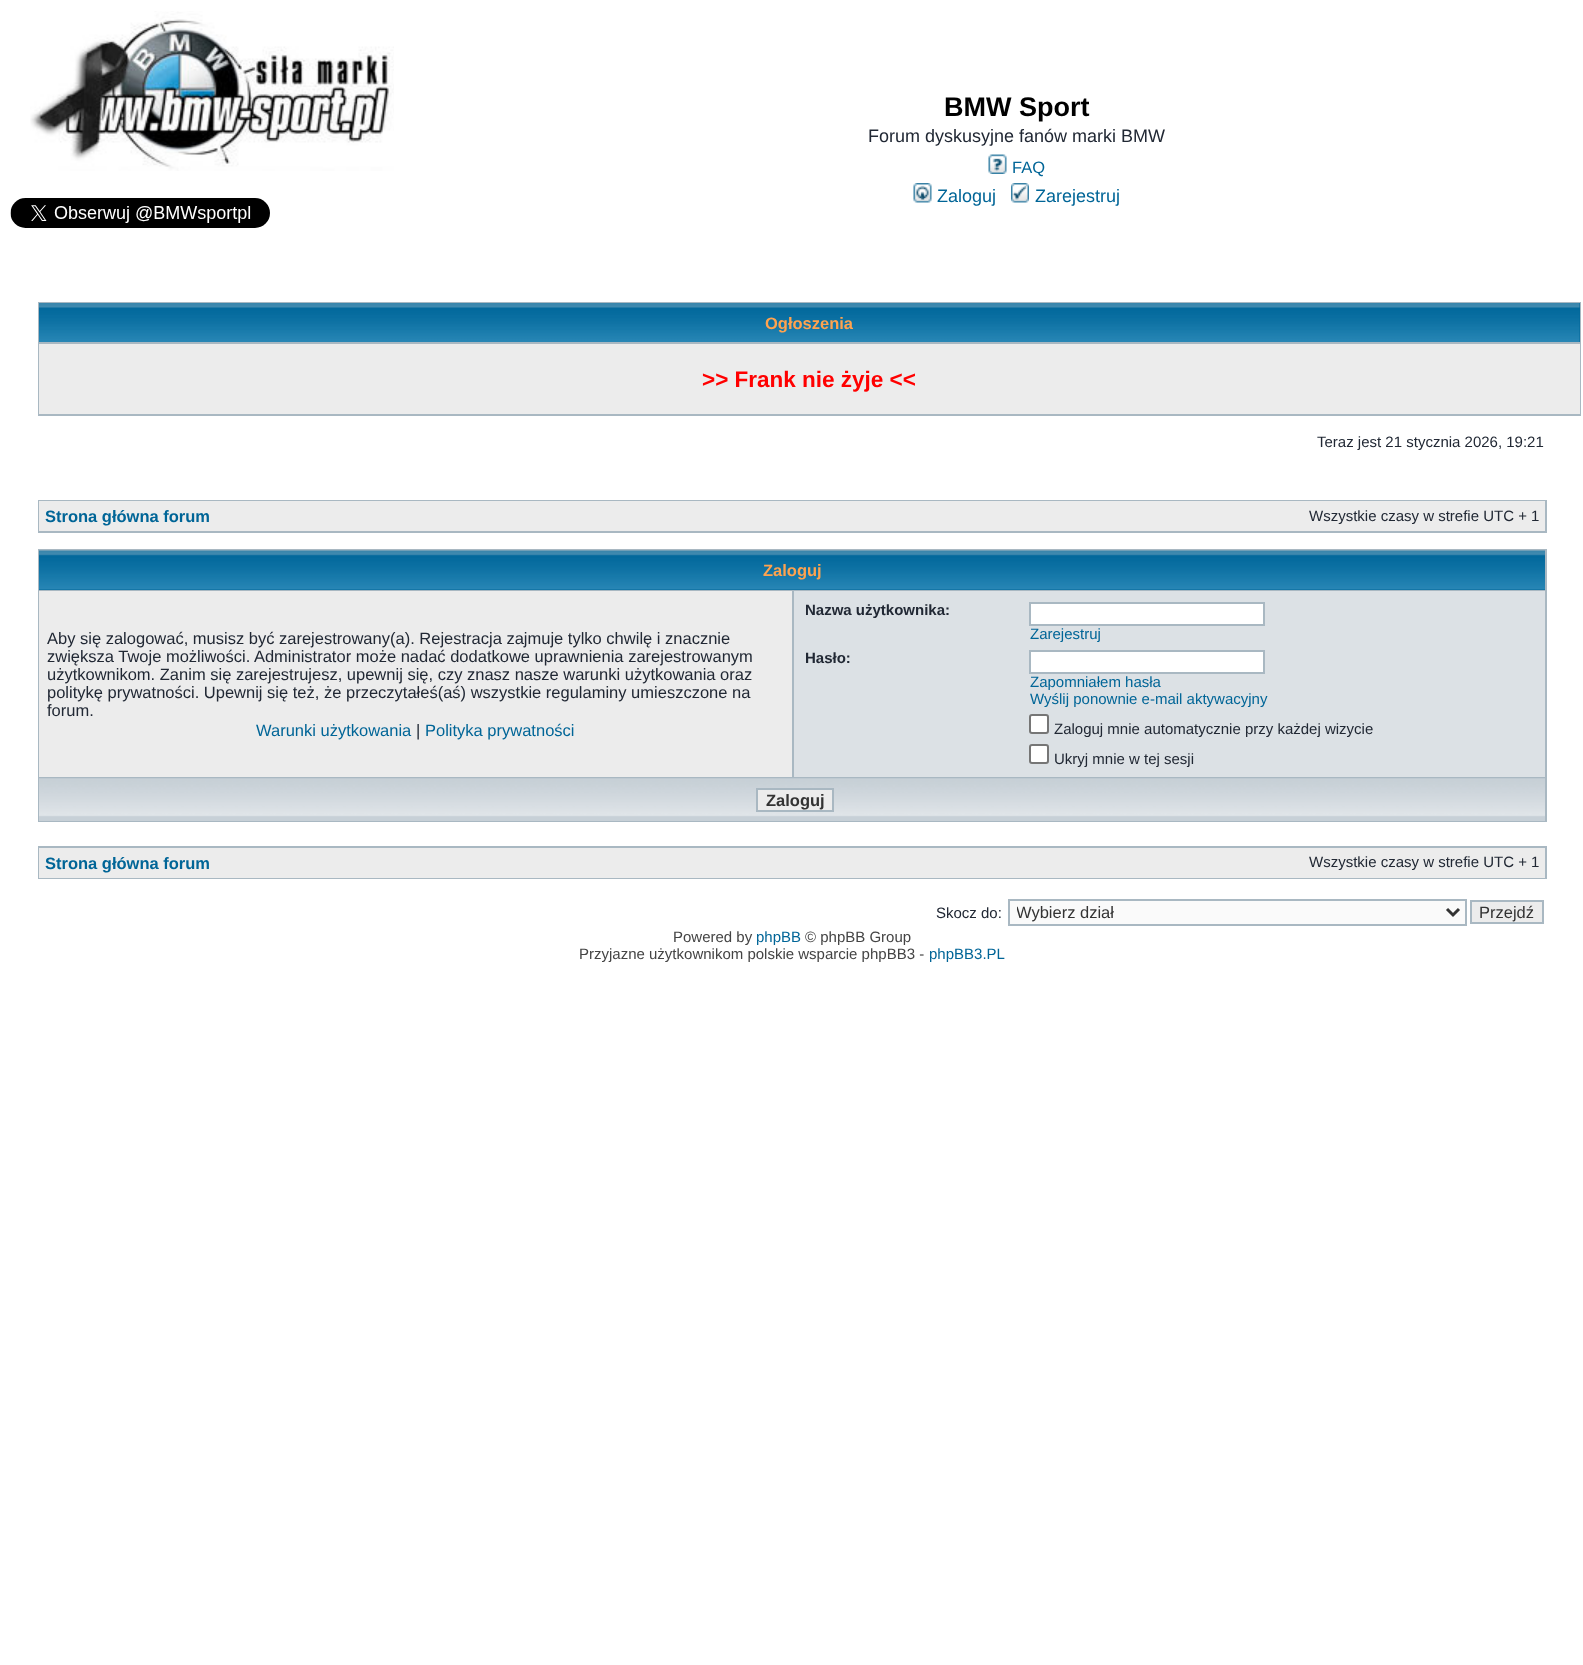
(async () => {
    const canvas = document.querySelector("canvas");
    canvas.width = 1583;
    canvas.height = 1665;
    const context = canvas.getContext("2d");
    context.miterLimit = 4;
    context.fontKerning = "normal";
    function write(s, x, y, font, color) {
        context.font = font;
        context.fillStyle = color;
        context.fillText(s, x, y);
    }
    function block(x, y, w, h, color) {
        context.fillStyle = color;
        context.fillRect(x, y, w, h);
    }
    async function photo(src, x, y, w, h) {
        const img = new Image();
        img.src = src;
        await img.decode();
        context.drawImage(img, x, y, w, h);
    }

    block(0, 0, 1583, 1665, "rgb(255, 255, 255)");
    await photo("media/1.png", 30, 11, 364, 160);
    await photo("media/2.png", 10, 198, 260, 30);
    write("BMW Sport", 944, 116, "bold 27px Liberation Sans", "rgb(0, 0, 0)");
    write("Forum dyskusyjne fanów marki BMW", 868, 142, "18px Liberation Sans", "rgb(33, 40, 52)");
    await photo("media/3.png", 988, 154, 19, 20);
    write("FAQ", 1012, 173, "16.5px Liberation Sans", "rgb(0, 101, 151)");
    await photo("media/4.png", 913, 183, 19, 20);
    write("Zaloguj", 937, 202, "18px Liberation Sans", "rgb(0, 101, 151)");
    await photo("media/5.png", 1011, 183, 18, 20);
    write("Zarejestruj", 1035, 202, "18px Liberation Sans", "rgb(0, 101, 151)");
    block(38, 302, 1543, 114, "rgb(169, 184, 194)");
    block(1579, 303, 1, 39, "rgb(0, 102, 153)");
    await photo("media/6.png", 39, 303, 1541, 39);
    write("Ogłoszenia", 765, 329, "bold 16.5px Liberation Sans", "rgb(255, 163, 79)");
    block(39, 344, 1541, 70, "rgb(236, 236, 236)");
    write(">> Frank nie żyje <<", 702, 387, "bold 22.5px Liberation Sans", "rgb(255, 0, 0)");
    write("Teraz jest 21 stycznia 2026, 19:21", 1317, 447, "15px Liberation Sans", "rgb(33, 40, 52)");
    block(38, 500, 1509, 33, "rgb(169, 184, 194)");
    block(39, 501, 1506, 30, "rgb(236, 236, 236)");
    write("Strona główna forum", 45, 522, "bold 16.5px Liberation Sans", "rgb(0, 101, 151)");
    write("Wszystkie czasy w strefie UTC + 1", 1309, 521, "15px Liberation Sans", "rgb(33, 40, 52)");
    block(38, 549, 1509, 273, "rgb(169, 184, 194)");
    block(39, 589, 1506, 1, "rgb(0, 102, 153)");
    await photo("media/7.png", 39, 550, 1506, 40);
    write("Zaloguj", 763, 576, "bold 16.5px Liberation Sans", "rgb(255, 163, 79)");
    block(39, 591, 753, 186, "rgb(236, 236, 236)");
    write("Aby się zalogować, musisz być zarejestrowany(a). Rejestracja zajmuje tylko chwilę i znacznie", 47, 644, "16.5px Liberation Sans", "rgb(33, 40, 52)");
    write("zwiększa Twoje możliwości. Administrator może nadać dodatkowe uprawnienia zarejestrowanym", 47, 662, "16.5px Liberation Sans", "rgb(33, 40, 52)");
    write("użytkownikom. Zanim się zarejestrujesz, upewnij się, czy znasz nasze warunki użytkowania oraz", 47, 680, "16.5px Liberation Sans", "rgb(33, 40, 52)");
    write("politykę prywatności. Upewnij się też, że przeczytałeś(aś) wszystkie regulaminy umieszczone na", 47, 698, "16.5px Liberation Sans", "rgb(33, 40, 52)");
    write("forum.", 47, 716, "16.5px Liberation Sans", "rgb(33, 40, 52)");
    write("Warunki użytkowania", 256, 736, "16.5px Liberation Sans", "rgb(0, 101, 151)");
    write("|", 416, 736, "16.5px Liberation Sans", "rgb(33, 40, 52)");
    write("Polityka prywatności", 425, 736, "16.5px Liberation Sans", "rgb(0, 101, 151)");
    block(794, 591, 751, 186, "rgb(220, 225, 229)");
    write("Nazwa użytkownika:", 805, 615, "bold 15px Liberation Sans", "rgb(33, 40, 52)");
    context.fillStyle = "rgb(255, 255, 255)";
    context.beginPath();
    context.rect(1030, 603, 234, 22);
    context.fill();
    context.strokeStyle = "rgb(169, 184, 194)";
    context.lineWidth = 2;
    context.stroke();
    write("Zarejestruj", 1030, 639, "15px Liberation Sans", "rgb(0, 101, 151)");
    write("Hasło:", 805, 663, "bold 15px Liberation Sans", "rgb(33, 40, 52)");
    context.fillStyle = "rgb(255, 255, 255)";
    context.beginPath();
    context.rect(1030, 651, 234, 22);
    context.fill();
    context.stroke();
    write("Zapomniałem hasła", 1030, 687, "15px Liberation Sans", "rgb(0, 101, 151)");
    write("Wyślij ponownie e-mail aktywacyjny", 1030, 704, "15px Liberation Sans", "rgb(0, 101, 151)");
    context.fillStyle = "rgb(255, 255, 255)";
    context.beginPath();
    context.roundRect(1030, 715, 18, 18, 2);
    context.fill();
    context.strokeStyle = "rgb(118, 118, 118)";
    context.stroke();
    write("Zaloguj mnie automatycznie przy każdej wizycie", 1054, 734, "15px Liberation Sans", "rgb(33, 40, 52)");
    context.fillStyle = "rgb(255, 255, 255)";
    context.beginPath();
    context.roundRect(1030, 745, 18, 18, 2);
    context.fill();
    context.stroke();
    write("Ukryj mnie w tej sesji", 1054, 764, "15px Liberation Sans", "rgb(33, 40, 52)");
    block(39, 817, 1506, 4, "rgb(199, 208, 215)");
    await photo("media/8.png", 39, 778, 1506, 39);
    context.fillStyle = "rgb(236, 236, 236)";
    context.beginPath();
    context.rect(757, 789, 76, 22);
    context.fill();
    context.strokeStyle = "rgb(169, 184, 194)";
    context.stroke();
    write("Zaloguj", 766, 806, "bold 16.5px Liberation Sans", "rgb(51, 51, 51)");
    block(38, 846, 1509, 33, "rgb(169, 184, 194)");
    block(39, 848, 1506, 30, "rgb(236, 236, 236)");
    write("Strona główna forum", 45, 869, "bold 16.5px Liberation Sans", "rgb(0, 101, 151)");
    write("Wszystkie czasy w strefie UTC + 1", 1309, 867, "15px Liberation Sans", "rgb(33, 40, 52)");
    write("Skocz do:", 936, 918, "15px Liberation Sans", "rgb(33, 40, 52)");
    context.fillStyle = "rgb(250, 250, 250)";
    context.beginPath();
    context.rect(1009, 900, 457, 25);
    context.fill();
    context.stroke();
    context.beginPath();
    context.moveTo(1447, 909);
    context.lineTo(1453, 915);
    context.lineTo(1459, 909);
    context.strokeStyle = "rgb(51, 51, 51)";
    context.lineWidth = 3;
    context.stroke();
    context.save();
    context.beginPath();
    context.rect(1017, 902, 423, 21);
    context.clip();
    write("Wybierz dział", 1016, 918, "16.5px Liberation Sans", "rgb(51, 51, 51)");
    context.restore();
    context.fillStyle = "rgb(236, 236, 236)";
    context.beginPath();
    context.rect(1471, 901, 72, 22);
    context.fill();
    context.strokeStyle = "rgb(169, 184, 194)";
    context.lineWidth = 2;
    context.stroke();
    write("Przejdź", 1479, 918, "16.5px Liberation Sans", "rgb(51, 51, 51)");
    write("Powered by", 673, 942, "15px Liberation Sans", "rgb(68, 68, 68)");
    write("phpBB", 756, 942, "15px Liberation Sans", "rgb(0, 101, 151)");
    write("© phpBB Group", 805, 942, "15px Liberation Sans", "rgb(68, 68, 68)");
    write("Przyjazne użytkownikom polskie wsparcie phpBB3 -", 579, 959, "15px Liberation Sans", "rgb(68, 68, 68)");
    write("phpBB3.PL", 929, 959, "15px Liberation Sans", "rgb(0, 101, 151)");
})();
